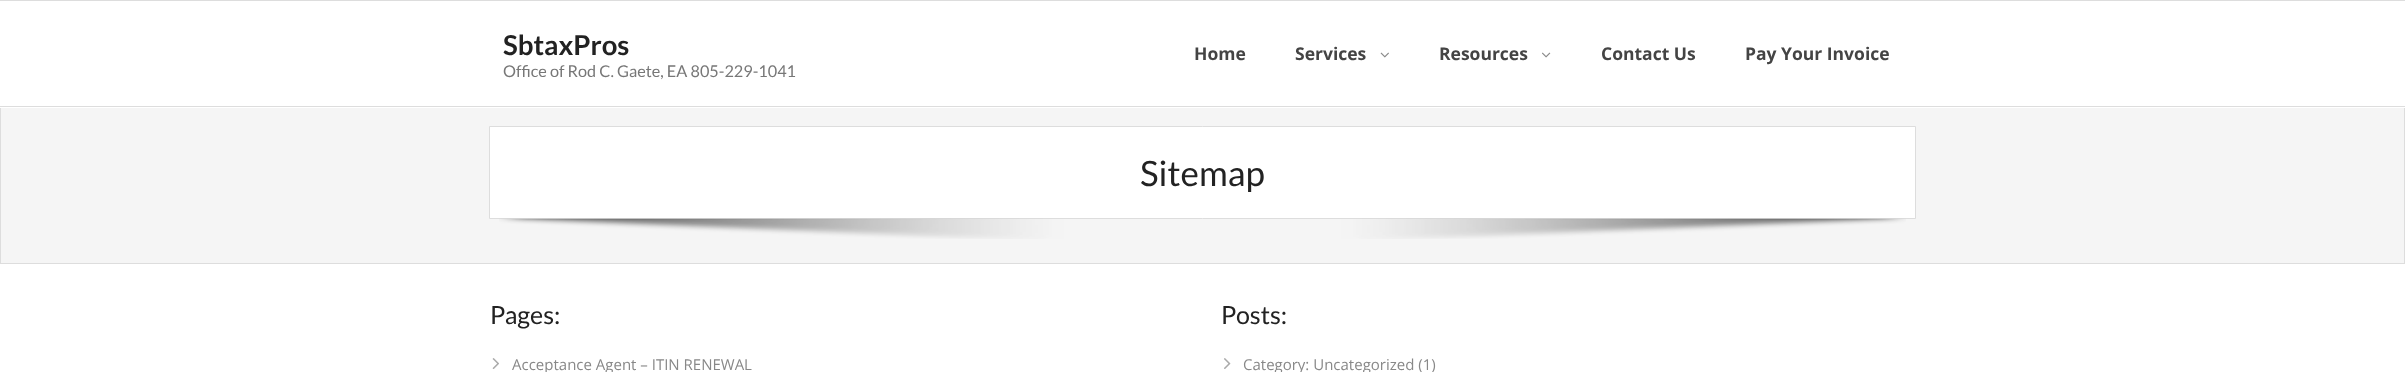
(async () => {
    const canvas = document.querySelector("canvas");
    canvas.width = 2405;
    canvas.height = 372;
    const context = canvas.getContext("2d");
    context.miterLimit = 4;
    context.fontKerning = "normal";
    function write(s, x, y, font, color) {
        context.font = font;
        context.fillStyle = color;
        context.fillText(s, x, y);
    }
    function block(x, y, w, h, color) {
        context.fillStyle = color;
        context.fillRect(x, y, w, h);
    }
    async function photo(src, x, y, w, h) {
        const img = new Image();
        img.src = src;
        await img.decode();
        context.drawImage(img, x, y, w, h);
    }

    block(0, 0, 2405, 372, "rgb(255, 255, 255)");
    block(0, 106, 2405, 1, "rgb(221, 221, 221)");
    block(0, 0, 2405, 1, "rgb(221, 221, 221)");
    write("SbtaxPros", 503, 55, "bold 27.5px Lato", "rgb(34, 34, 34)");
    write("Office of Rod C. Gaete, EA 805-229-1041", 503, 77, "16.25px Lato", "rgb(119, 119, 119)");
    write("Home", 1194, 60, "bold 17.5px Open Sans", "rgb(68, 68, 68)");
    write("Services", 1295, 60, "bold 17.5px Open Sans", "rgb(68, 68, 68)");
    await photo("media/1.png", 1380, 52, 9, 6);
    write("Resources", 1439, 60, "bold 17.5px Open Sans", "rgb(68, 68, 68)");
    await photo("media/2.png", 1542, 52, 9, 6);
    write("Contact Us", 1601, 60, "bold 17.5px Open Sans", "rgb(68, 68, 68)");
    write("Pay Your Invoice", 1745, 60, "bold 17.5px Open Sans", "rgb(68, 68, 68)");
    block(1, 108, 2403, 155, "rgb(245, 245, 245)");
    block(2404, 108, 1, 156, "rgb(221, 221, 221)");
    block(0, 263, 2405, 1, "rgb(221, 221, 221)");
    block(0, 108, 1, 156, "rgb(221, 221, 221)");
    context.fillStyle = "rgb(255, 255, 255)";
    context.beginPath();
    context.rect(489.5, 126.5, 1426, 92);
    context.fill();
    context.strokeStyle = "rgb(221, 221, 221)";
    context.stroke();
    write("Sitemap", 1140, 186, "35px Lato", "rgb(34, 34, 34)");
    await photo("media/3.png", 499, 218, 1407, 21);
    write("Pages:", 490, 324, "25px Lato", "rgb(34, 34, 34)");
    await photo("media/4.png", 492, 358, 7, 11);
    write("Acceptance Agent – ITIN RENEWAL", 512, 370, "15px Open Sans", "rgb(136, 136, 136)");
    write("Posts:", 1221, 324, "25px Lato", "rgb(34, 34, 34)");
    await photo("media/5.png", 1224, 358, 7, 11);
    write("Category: Uncategorized (1)", 1243, 370, "15px Open Sans", "rgb(136, 136, 136)");
})();
